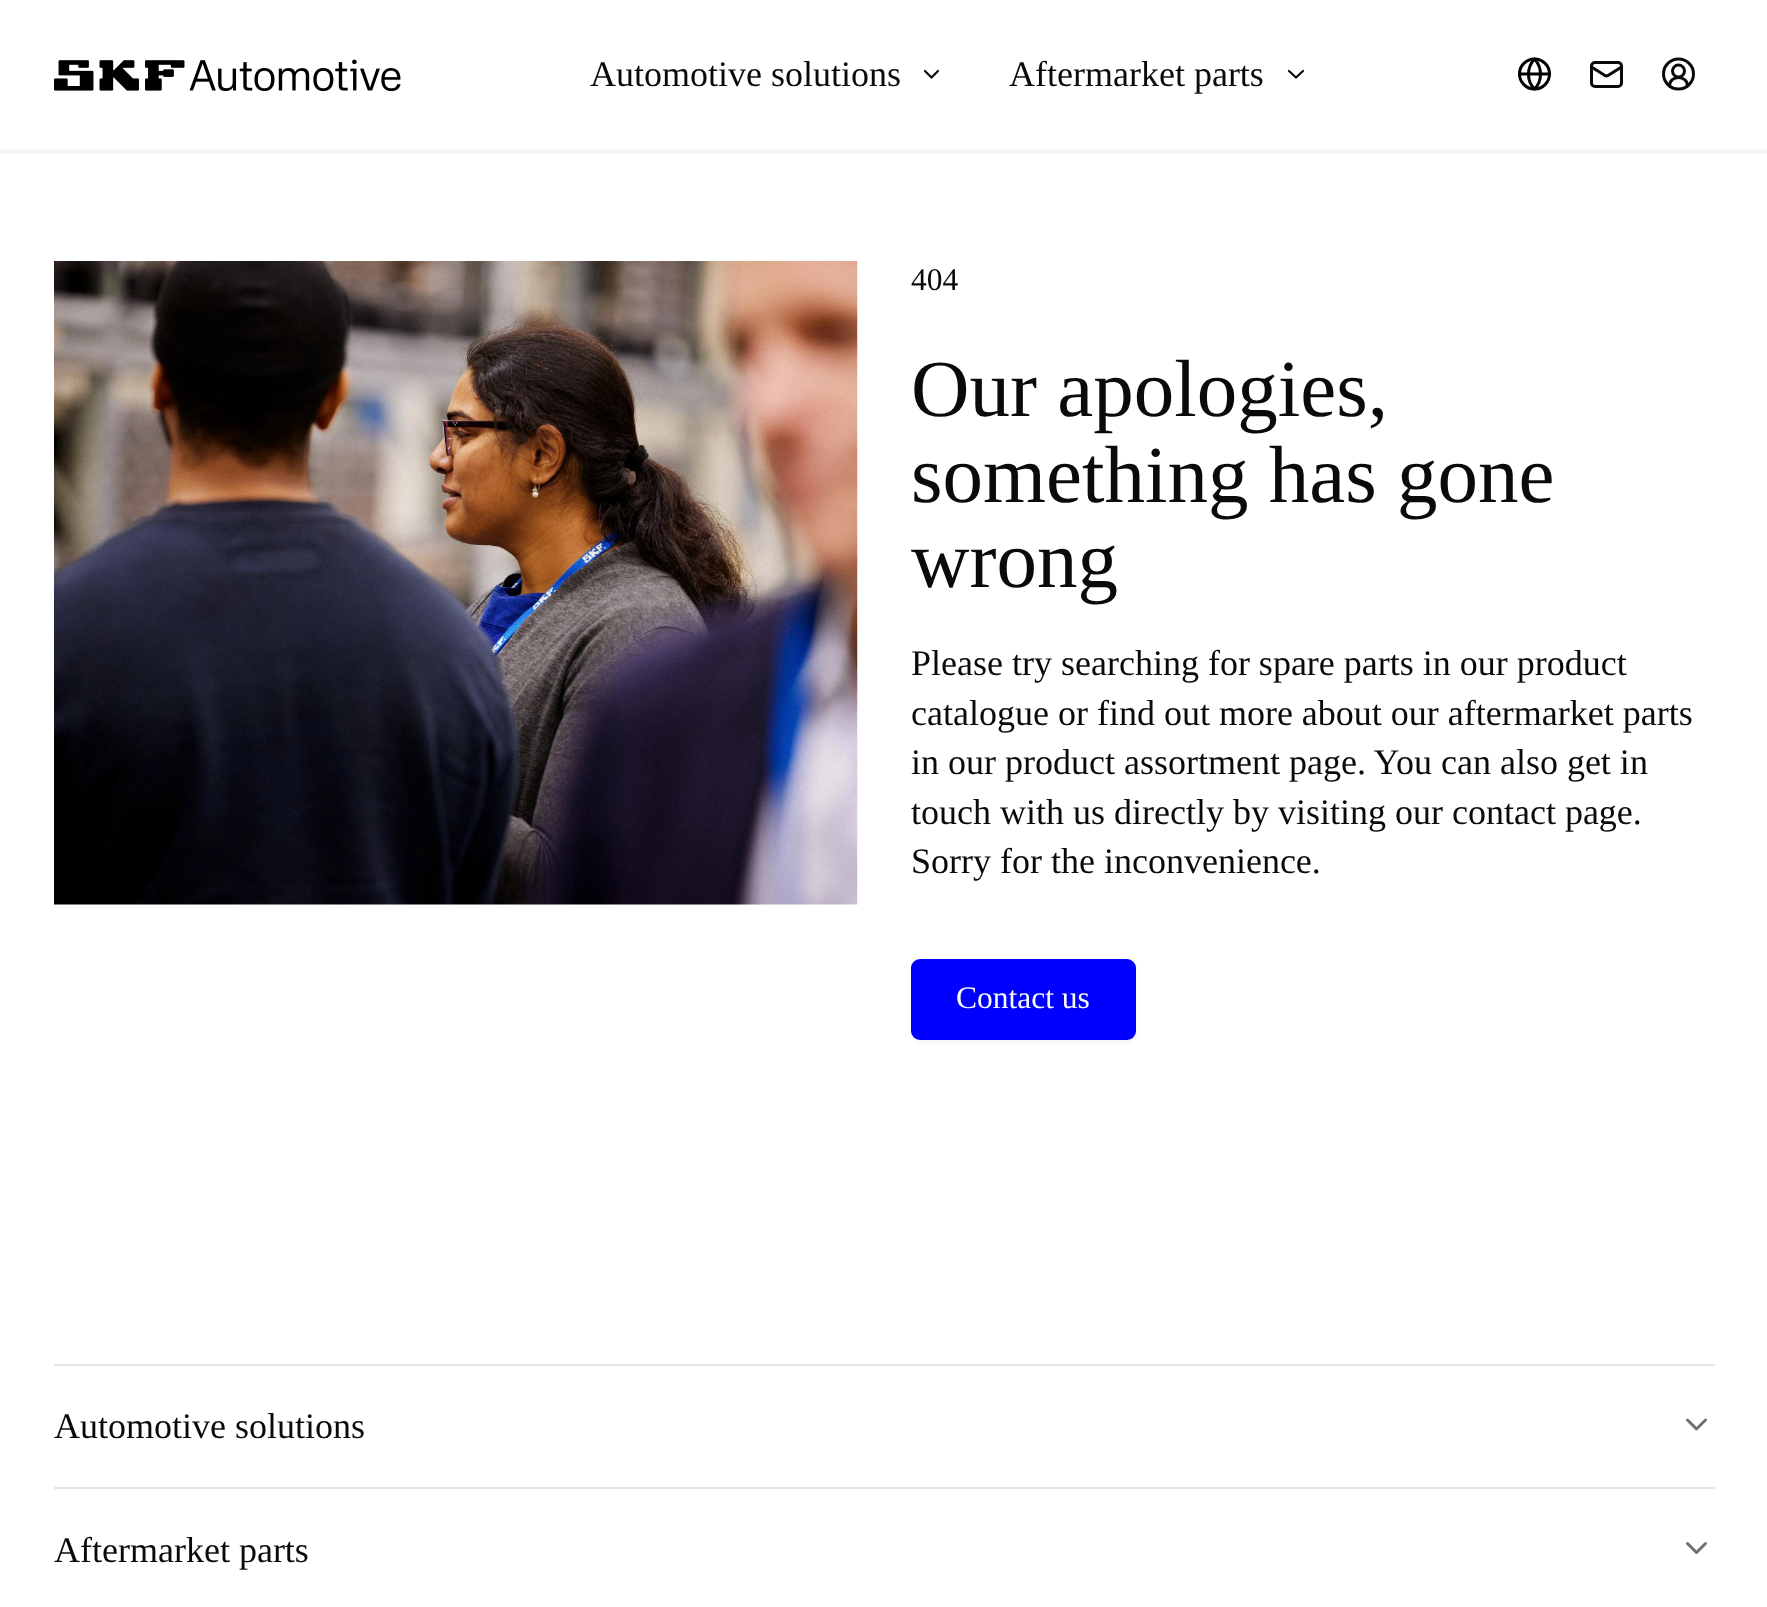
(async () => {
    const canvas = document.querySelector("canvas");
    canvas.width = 1767;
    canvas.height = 1607;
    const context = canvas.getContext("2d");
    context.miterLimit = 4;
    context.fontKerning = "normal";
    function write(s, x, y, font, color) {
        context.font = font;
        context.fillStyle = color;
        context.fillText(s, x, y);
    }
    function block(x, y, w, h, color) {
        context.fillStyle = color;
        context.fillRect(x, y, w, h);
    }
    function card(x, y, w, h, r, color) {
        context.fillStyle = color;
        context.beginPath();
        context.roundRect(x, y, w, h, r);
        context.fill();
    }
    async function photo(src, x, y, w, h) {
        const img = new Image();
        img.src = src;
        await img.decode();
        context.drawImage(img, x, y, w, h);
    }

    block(0, 0, 1767, 1607, "rgb(255, 255, 255)");
    block(0, 149, 1767, 5, "rgb(245, 245, 245)");
    await photo("media/1.png", 54, 59, 347, 33);
    write("Automotive solutions", 590, 86, "36px Liberation Serif", "rgb(10, 10, 10)");
    context.beginPath();
    context.moveTo(925, 71);
    context.lineTo(931.5, 77.5);
    context.lineTo(938, 71);
    context.strokeStyle = "rgb(10, 10, 10)";
    context.lineWidth = 2.2;
    context.lineCap = "round";
    context.lineJoin = "round";
    context.stroke();
    write("Aftermarket parts", 1009, 86, "36px Liberation Serif", "rgb(10, 10, 10)");
    context.beginPath();
    context.moveTo(1289, 71);
    context.lineTo(1296, 77.5);
    context.lineTo(1303, 71);
    context.stroke();
    context.beginPath();
    context.arc(1534.5, 74, 15, 0, Math.PI * 2);
    context.strokeStyle = "rgb(0, 0, 0)";
    context.lineWidth = 3;
    context.stroke();
    context.beginPath();
    context.moveTo(1534.5, 59);
    context.bezierCurveTo(1526.5, 67.5, 1526.5, 81, 1534.5, 89);
    context.bezierCurveTo(1542.5, 81, 1542.5, 67.5, 1534.5, 59);
    context.moveTo(1519.5, 74);
    context.lineTo(1549.5, 74);
    context.stroke();
    context.beginPath();
    context.moveTo(1621.5, 67);
    context.lineTo(1608, 75.5);
    context.bezierCurveTo(1607, 76, 1606, 76, 1605, 75.5);
    context.lineTo(1591.5, 67);
    context.strokeStyle = "rgb(10, 10, 10)";
    context.stroke();
    context.beginPath();
    context.roundRect(1591.5, 62.5, 30, 24, 3.5);
    context.lineJoin = "miter";
    context.stroke();
    context.beginPath();
    context.moveTo(1687.5, 86);
    context.bezierCurveTo(1687.5, 74.5, 1669.5, 74.5, 1669.5, 86);
    context.lineJoin = "round";
    context.stroke();
    context.beginPath();
    context.arc(1678.5, 71, 6, 0, Math.PI * 2);
    context.stroke();
    context.beginPath();
    context.arc(1678.5, 74, 15, 0, Math.PI * 2);
    context.stroke();
    await photo("media/2.png", 54, 261, 804, 644);
    write("404", 911, 290, "31.5px Liberation Serif", "rgb(10, 10, 10)");
    write("Our apologies,", 911, 416, "81px Liberation Serif", "rgb(10, 10, 10)");
    write("something has gone", 911, 502, "81px Liberation Serif", "rgb(10, 10, 10)");
    write("wrong", 911, 587, "81px Liberation Serif", "rgb(10, 10, 10)");
    write("Please try searching for spare parts in our product", 911, 675, "36px Liberation Serif", "rgb(10, 10, 10)");
    write("catalogue or find out more about our aftermarket parts", 911, 725, "36px Liberation Serif", "rgb(10, 10, 10)");
    write("in our product assortment page. You can also get in", 911, 774, "36px Liberation Serif", "rgb(10, 10, 10)");
    write("touch with us directly by visiting our contact page.", 911, 824, "36px Liberation Serif", "rgb(10, 10, 10)");
    write("Sorry for the inconvenience.", 911, 873, "36px Liberation Serif", "rgb(10, 10, 10)");
    context.fillStyle = "rgba(0, 0, 0, 0.05)";
    context.filter = "blur(2px)";
    context.beginPath();
    context.roundRect(911, 961, 225, 81, 9);
    context.fill();
    context.filter = "none";
    card(911, 959, 225, 81, 9, "rgb(0, 0, 254)");
    write("Contact us", 956, 1008, "31.5px Liberation Serif", "rgb(250, 250, 250)");
    block(54, 1364, 1661, 2, "rgb(229, 229, 229)");
    block(54, 1487, 1661, 2, "rgb(229, 229, 229)");
    write("Automotive solutions", 54, 1438, "36px Liberation Serif", "rgb(10, 10, 10)");
    context.beginPath();
    context.moveTo(1687.5, 1420);
    context.lineTo(1696.5, 1429);
    context.lineTo(1705.5, 1420);
    context.strokeStyle = "rgb(112, 112, 112)";
    context.stroke();
    write("Aftermarket parts", 54, 1562, "36px Liberation Serif", "rgb(10, 10, 10)");
    context.beginPath();
    context.moveTo(1687.5, 1543.5);
    context.lineTo(1696.5, 1552.5);
    context.lineTo(1705.5, 1543.5);
    context.stroke();
})();
